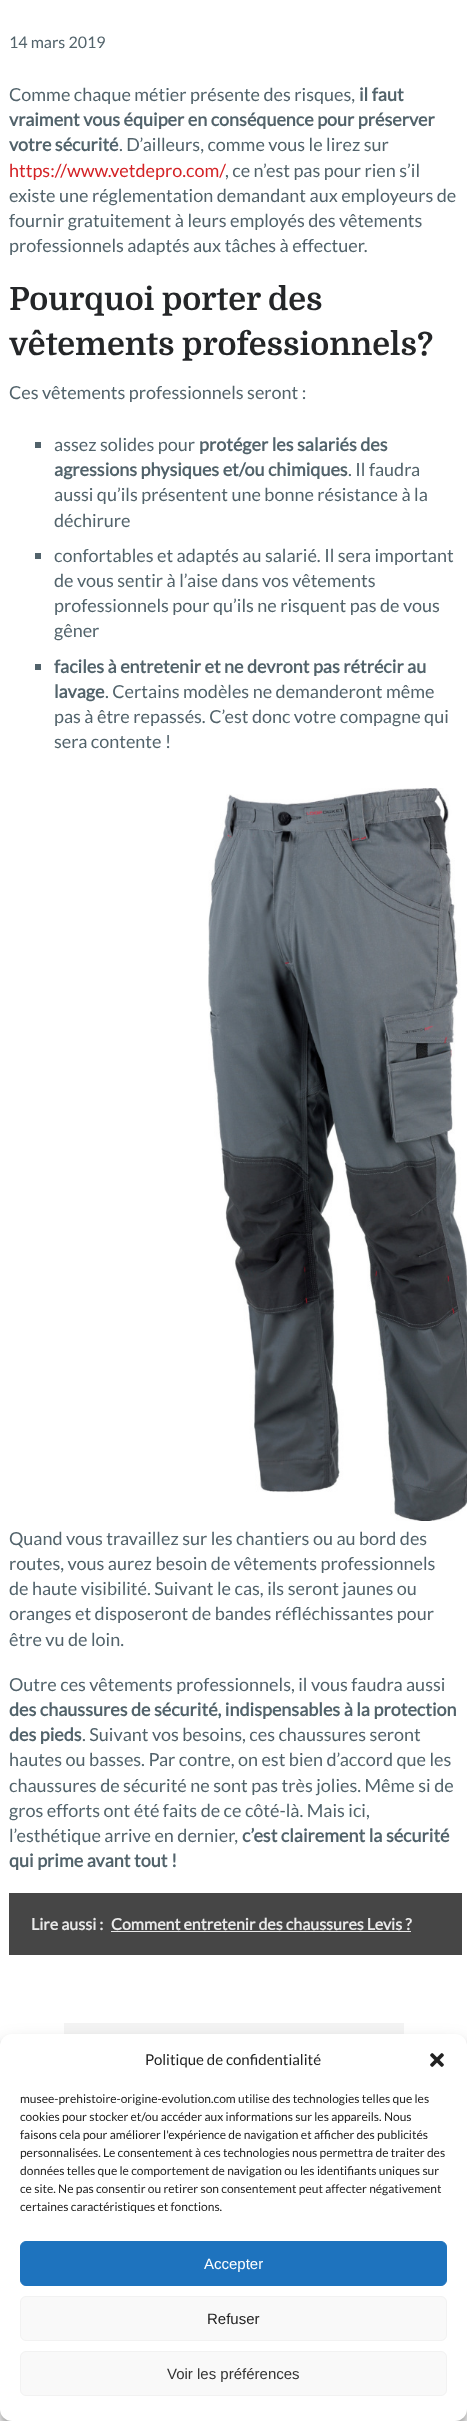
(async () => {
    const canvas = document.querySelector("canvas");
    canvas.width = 467;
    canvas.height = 2421;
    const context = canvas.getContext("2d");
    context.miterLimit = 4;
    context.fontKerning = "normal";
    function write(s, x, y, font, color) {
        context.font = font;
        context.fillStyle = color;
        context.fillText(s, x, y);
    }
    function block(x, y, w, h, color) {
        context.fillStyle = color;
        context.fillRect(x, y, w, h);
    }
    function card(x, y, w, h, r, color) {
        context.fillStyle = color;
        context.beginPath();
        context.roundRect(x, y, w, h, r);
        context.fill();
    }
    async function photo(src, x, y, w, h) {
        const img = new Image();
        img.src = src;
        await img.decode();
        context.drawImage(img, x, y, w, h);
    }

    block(0, 0, 467, 2421, "rgb(255, 255, 255)");
    write("14 mars 2019", 9, 48, "16px Lato", "rgb(82, 99, 107)");
    write("Comme chaque métier présente des risques,", 9, 101, "18px Lato", "rgb(82, 99, 107)");
    write("il faut", 359, 101, "bold 18px Lato", "rgb(82, 99, 107)");
    write("vraiment vous équiper en conséquence pour préserver", 9, 126, "bold 18px Lato", "rgb(82, 99, 107)");
    write("votre sécurité", 9, 151, "bold 18px Lato", "rgb(82, 99, 107)");
    write(". D’ailleurs, comme vous le lirez sur", 119, 151, "18px Lato", "rgb(82, 99, 107)");
    write("https://www.vetdepro.com/", 9, 177, "18px Lato", "rgb(212, 34, 38)");
    write(", ce n’est pas pour rien s’il", 225, 177, "18px Lato", "rgb(82, 99, 107)");
    write("existe une réglementation demandant aux employeurs de", 9, 202, "18px Lato", "rgb(82, 99, 107)");
    write("fournir gratuitement à leurs employés des vêtements", 9, 227, "18px Lato", "rgb(82, 99, 107)");
    write("professionnels adaptés aux tâches à effectuer.", 9, 252, "18px Lato", "rgb(82, 99, 107)");
    write("Pourquoi porter des", 9, 310, "bold 32px Domine", "rgb(36, 38, 40)");
    write("vêtements professionnels?", 9, 355, "bold 32px Domine", "rgb(36, 38, 40)");
    write("Ces vêtements professionnels seront :", 9, 399, "18px Lato", "rgb(82, 99, 107)");
    block(35, 442, 6, 6, "rgb(82, 99, 107)");
    write("assez solides pour", 54, 451, "18px Lato", "rgb(82, 99, 107)");
    write("protéger les salariés des", 199, 451, "bold 18px Lato", "rgb(82, 99, 107)");
    write("agressions physiques et/ou chimiques", 54, 476, "bold 18px Lato", "rgb(82, 99, 107)");
    write(". Il faudra", 348, 476, "18px Lato", "rgb(82, 99, 107)");
    write("aussi qu’ils présentent une bonne résistance à la", 54, 501, "18px Lato", "rgb(82, 99, 107)");
    write("déchirure", 54, 527, "18px Lato", "rgb(82, 99, 107)");
    block(35, 553, 6, 6, "rgb(82, 99, 107)");
    write("confortables et adaptés au salarié. Il sera important", 54, 562, "18px Lato", "rgb(82, 99, 107)");
    write("de vous sentir à l’aise dans vos vêtements", 54, 587, "18px Lato", "rgb(82, 99, 107)");
    write("professionnels pour qu’ils ne risquent pas de vous", 54, 612, "18px Lato", "rgb(82, 99, 107)");
    write("gêner", 54, 637, "18px Lato", "rgb(82, 99, 107)");
    block(35, 664, 6, 6, "rgb(82, 99, 107)");
    write("faciles à entretenir et ne devront pas rétrécir au", 54, 673, "bold 18px Lato", "rgb(82, 99, 107)");
    write("lavage", 54, 698, "bold 18px Lato", "rgb(82, 99, 107)");
    write(". Certains modèles ne demanderont même", 105, 698, "18px Lato", "rgb(82, 99, 107)");
    write("pas à être repassés. C’est donc votre compagne qui", 54, 723, "18px Lato", "rgb(82, 99, 107)");
    write("sera contente !", 54, 748, "18px Lato", "rgb(82, 99, 107)");
    await photo("media/1.png", 208, 788, 259, 733);
    write("Quand vous travaillez sur les chantiers ou au bord des", 9, 1545, "18px Lato", "rgb(82, 99, 107)");
    write("routes, vous aurez besoin de vêtements professionnels", 9, 1570, "18px Lato", "rgb(82, 99, 107)");
    write("de haute visibilité. Suivant le cas, ils seront jaunes ou", 9, 1595, "18px Lato", "rgb(82, 99, 107)");
    write("oranges et disposeront de bandes réfléchissantes pour", 9, 1620, "18px Lato", "rgb(82, 99, 107)");
    write("être vu de loin.", 9, 1646, "18px Lato", "rgb(82, 99, 107)");
    write("Outre ces vêtements professionnels, il vous faudra aussi", 9, 1691, "18px Lato", "rgb(82, 99, 107)");
    write("des chaussures de sécurité, indispensables à la protection", 9, 1716, "bold 18px Lato", "rgb(82, 99, 107)");
    write("des pieds", 9, 1741, "bold 18px Lato", "rgb(82, 99, 107)");
    write(". Suivant vos besoins, ces chaussures seront", 82, 1741, "18px Lato", "rgb(82, 99, 107)");
    write("hautes ou basses. Par contre, on est bien d’accord que les", 9, 1766, "18px Lato", "rgb(82, 99, 107)");
    write("chaussures de sécurité ne sont pas très jolies. Même si de", 9, 1792, "18px Lato", "rgb(82, 99, 107)");
    write("gros efforts ont été faits de ce côté-là. Mais ici,", 9, 1817, "18px Lato", "rgb(82, 99, 107)");
    write("l’esthétique arrive en dernier,", 9, 1842, "18px Lato", "rgb(82, 99, 107)");
    write("c’est clairement la sécurité", 242, 1842, "bold 18px Lato", "rgb(82, 99, 107)");
    write("qui prime avant tout !", 9, 1867, "bold 18px Lato", "rgb(82, 99, 107)");
    block(9, 1893, 453, 62, "rgb(70, 70, 70)");
    write("Lire aussi :", 31, 1930, "bold 16px Lato", "rgb(234, 234, 234)");
    write("Comment entretenir des chaussures Levis ?", 111, 1930, "bold 16px Lato", "rgb(234, 234, 234)");
    block(111, 1931, 300, 1, "rgb(234, 234, 234)");
    block(64, 2023, 340, 11, "rgb(244, 244, 244)");
    context.fillStyle = "rgba(0, 0, 0, 0.23)";
    context.filter = "blur(3px)";
    context.beginPath();
    context.roundRect(0, 2040, 467, 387, 12);
    context.fill();
    context.filter = "none";
    context.fillStyle = "rgba(0, 0, 0, 0.19)";
    context.filter = "blur(10px)";
    context.beginPath();
    context.roundRect(0, 2044, 467, 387, 12);
    context.fill();
    context.filter = "none";
    card(0, 2034, 467, 387, 12, "rgb(255, 255, 255)");
    write("Politique de confidentialité", 145, 2065, "15px Lato", "rgb(34, 34, 34)");
    await photo("media/2.png", 430, 2053, 14, 14);
    write("musee-prehistoire-origine-evolution.com utilise des technologies telles que les", 20, 2103, "12px Lato", "rgb(34, 34, 34)");
    write("cookies pour stocker et/ou accéder aux informations sur les appareils. Nous", 20, 2121, "12px Lato", "rgb(34, 34, 34)");
    write("faisons cela pour améliorer l'expérience de navigation et afficher des publicités", 20, 2139, "12px Lato", "rgb(34, 34, 34)");
    write("personnalisées. Le consentement à ces technologies nous permettra de traiter des", 20, 2157, "12px Lato", "rgb(34, 34, 34)");
    write("données telles que le comportement de navigation ou les identifiants uniques sur", 20, 2175, "12px Lato", "rgb(34, 34, 34)");
    write("ce site. Ne pas consentir ou retirer son consentement peut affecter négativement", 20, 2193, "12px Lato", "rgb(34, 34, 34)");
    write("certaines caractéristiques et fonctions.", 20, 2211, "12px Lato", "rgb(34, 34, 34)");
    context.fillStyle = "rgb(30, 115, 190)";
    context.beginPath();
    context.roundRect(20.5, 2241.5, 426, 44, 5.5);
    context.fill();
    context.strokeStyle = "rgb(30, 115, 190)";
    context.stroke();
    write("Accepter", 204, 2269, "15px Liberation Sans", "rgb(255, 255, 255)");
    context.fillStyle = "rgb(249, 249, 249)";
    context.beginPath();
    context.roundRect(20.5, 2296.5, 426, 44, 5.5);
    context.fill();
    context.strokeStyle = "rgb(242, 242, 242)";
    context.stroke();
    write("Refuser", 207, 2324, "15px Liberation Sans", "rgb(34, 34, 34)");
    context.fillStyle = "rgb(249, 249, 249)";
    context.beginPath();
    context.roundRect(20.5, 2351.5, 426, 44, 5.5);
    context.fill();
    context.stroke();
    write("Voir les préférences", 167, 2379, "15px Liberation Sans", "rgb(51, 51, 51)");
})();
